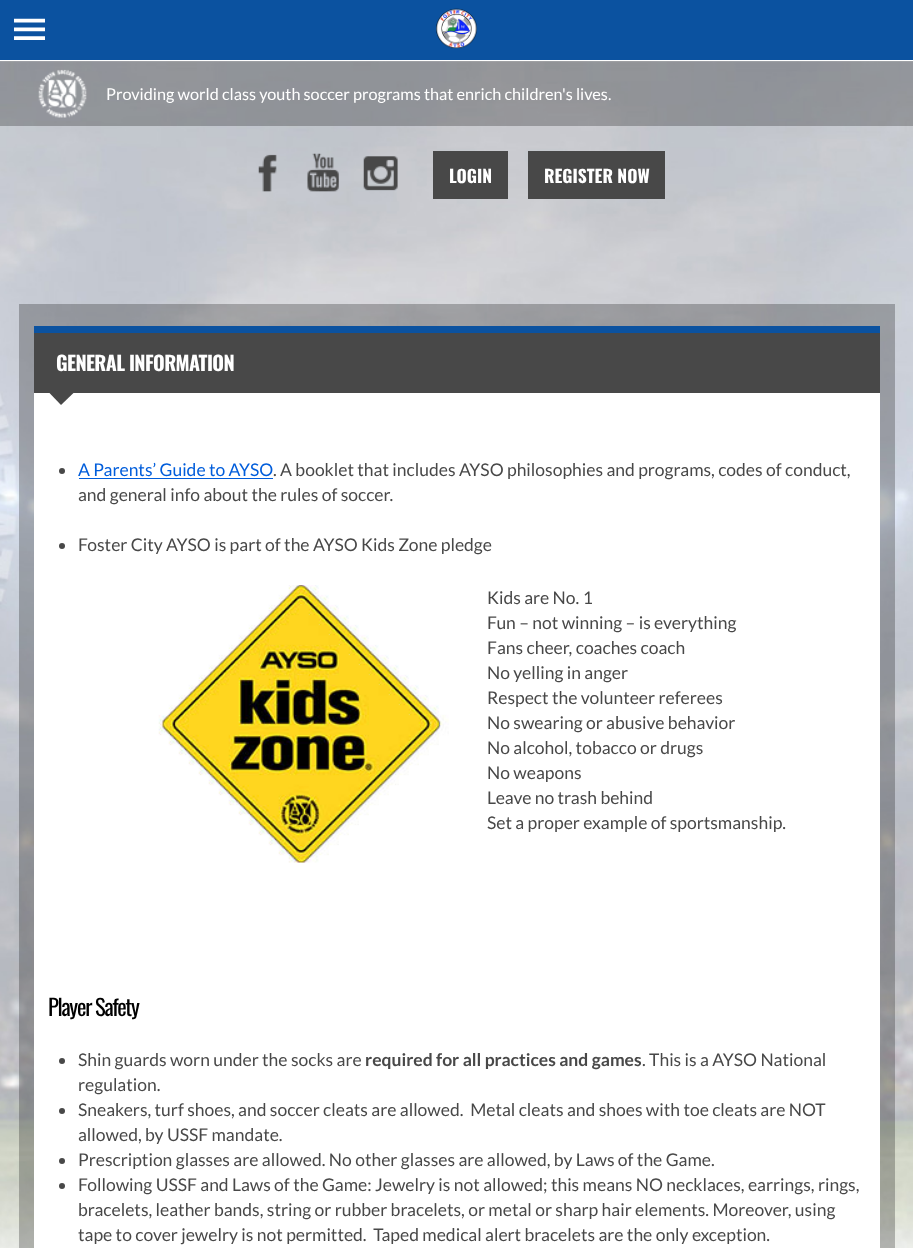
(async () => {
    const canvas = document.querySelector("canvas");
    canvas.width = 913;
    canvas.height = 1248;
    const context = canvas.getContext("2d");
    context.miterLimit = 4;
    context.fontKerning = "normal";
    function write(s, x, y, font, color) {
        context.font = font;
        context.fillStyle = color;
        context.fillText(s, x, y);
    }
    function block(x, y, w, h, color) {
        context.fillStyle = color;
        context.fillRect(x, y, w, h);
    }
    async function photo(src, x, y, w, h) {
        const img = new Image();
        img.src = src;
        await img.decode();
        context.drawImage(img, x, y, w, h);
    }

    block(0, 0, 913, 1248, "rgb(255, 255, 255)");
    block(0, 0, 913, 60, "rgb(11, 82, 160)");
    await photo("media/1.png", 14, 18, 31, 22);
    await photo("media/2.png", 436, 8, 42, 41);
    await photo("media/3.png", 0, 61, 913, 1187);
    block(0, 61, 913, 65, "rgba(0, 0, 0, 0.25)");
    await photo("media/4.png", 38, 69, 49, 49);
    write("Providing world class youth soccer programs that enrich children's lives.", 106, 100, "16.25px Lato", "rgb(255, 255, 255)");
    await photo("media/5.png", 258, 154, 19, 38);
    await photo("media/6.png", 307, 153, 32, 39);
    await photo("media/7.png", 363, 156, 35, 35);
    block(433, 151, 75, 48, "rgb(72, 72, 72)");
    write("LOGIN", 449, 183, "bold 17.5px Oswald", "rgb(255, 255, 255)");
    block(528, 151, 137, 48, "rgb(72, 72, 72)");
    write("REGISTER NOW", 544, 183, "bold 17.5px Oswald", "rgb(255, 255, 255)");
    block(19, 304, 876, 944, "rgba(0, 0, 0, 0.25)");
    block(34, 333, 846, 60, "rgb(72, 72, 72)");
    block(34, 326, 846, 7, "rgb(11, 82, 160)");
    context.letterSpacing = "-0.6px";
    write("GENERAL INFORMATION", 56, 371, "bold 20px Oswald", "rgb(255, 255, 255)");
    block(34, 393, 846, 855, "rgb(255, 255, 255)");
    context.fillStyle = "rgb(72, 72, 72)";
    context.beginPath();
    context.moveTo(49, 392.5);
    context.lineTo(74, 392.5);
    context.lineTo(61, 405);
    context.closePath();
    context.fill();
    context.beginPath();
    context.arc(62, 471, 3, 0, Math.PI * 2);
    context.fill();
    context.letterSpacing = "0px";
    write("A Parents’ Guide to AYSO", 78, 476, "17.5px Lato", "rgb(0, 93, 219)");
    block(79, 478, 194, 1, "rgb(0, 93, 219)");
    write(". A booklet that includes AYSO philosophies and programs, codes of conduct,", 273, 476, "17.5px Lato", "rgb(72, 72, 72)");
    write("and general info about the rules of soccer.", 78, 501, "17.5px Lato", "rgb(72, 72, 72)");
    context.beginPath();
    context.arc(62, 546, 3, 0, Math.PI * 2);
    context.fill();
    write("Foster City AYSO is part of the AYSO Kids Zone pledge", 78, 551, "17.5px Lato", "rgb(72, 72, 72)");
    await photo("media/8.png", 158, 585, 291, 278);
    write("Kids are No. 1", 487, 604, "17.5px Lato", "rgb(72, 72, 72)");
    write("Fun – not winning – is everything", 487, 629, "17.5px Lato", "rgb(72, 72, 72)");
    write("Fans cheer, coaches coach", 487, 654, "17.5px Lato", "rgb(72, 72, 72)");
    write("No yelling in anger", 487, 679, "17.5px Lato", "rgb(72, 72, 72)");
    write("Respect the volunteer referees", 487, 704, "17.5px Lato", "rgb(72, 72, 72)");
    write("No swearing or abusive behavior", 487, 729, "17.5px Lato", "rgb(72, 72, 72)");
    write("No alcohol, tobacco or drugs", 487, 754, "17.5px Lato", "rgb(72, 72, 72)");
    write("No weapons", 487, 779, "17.5px Lato", "rgb(72, 72, 72)");
    write("Leave no trash behind", 487, 804, "17.5px Lato", "rgb(72, 72, 72)");
    write("Set a proper example of sportsmanship.", 487, 829, "17.5px Lato", "rgb(72, 72, 72)");
    context.letterSpacing = "-1.25px";
    write("Player Safety", 48, 1016, "22.5px Oswald", "rgb(0, 0, 0)");
    context.fillStyle = "rgb(72, 72, 72)";
    context.beginPath();
    context.arc(62, 1061, 3, 0, Math.PI * 2);
    context.fill();
    context.letterSpacing = "0px";
    write("Shin guards worn under the socks are", 78, 1066, "17.5px Lato", "rgb(72, 72, 72)");
    write("required for all practices and games", 365, 1066, "bold 17.5px Lato", "rgb(72, 72, 72)");
    write(". This is a AYSO National", 642, 1066, "17.5px Lato", "rgb(72, 72, 72)");
    write("regulation.", 78, 1091, "17.5px Lato", "rgb(72, 72, 72)");
    context.beginPath();
    context.arc(62, 1111, 3, 0, Math.PI * 2);
    context.fill();
    write("Sneakers, turf shoes, and soccer cleats are allowed.  Metal cleats and shoes with toe cleats are NOT", 78, 1116, "17.5px Lato", "rgb(72, 72, 72)");
    write("allowed, by USSF mandate.", 78, 1141, "17.5px Lato", "rgb(72, 72, 72)");
    context.beginPath();
    context.arc(62, 1161, 3, 0, Math.PI * 2);
    context.fill();
    write("Prescription glasses are allowed. No other glasses are allowed, by Laws of the Game.", 78, 1166, "17.5px Lato", "rgb(72, 72, 72)");
    context.beginPath();
    context.arc(62, 1186, 3, 0, Math.PI * 2);
    context.fill();
    write("Following USSF and Laws of the Game: Jewelry is not allowed; this means NO necklaces, earrings, rings,", 78, 1191, "17.5px Lato", "rgb(72, 72, 72)");
    write("bracelets, leather bands, string or rubber bracelets, or metal or sharp hair elements. Moreover, using", 78, 1216, "17.5px Lato", "rgb(72, 72, 72)");
    write("tape to cover jewelry is not permitted.  Taped medical alert bracelets are the only exception.", 78, 1241, "17.5px Lato", "rgb(72, 72, 72)");
})();
